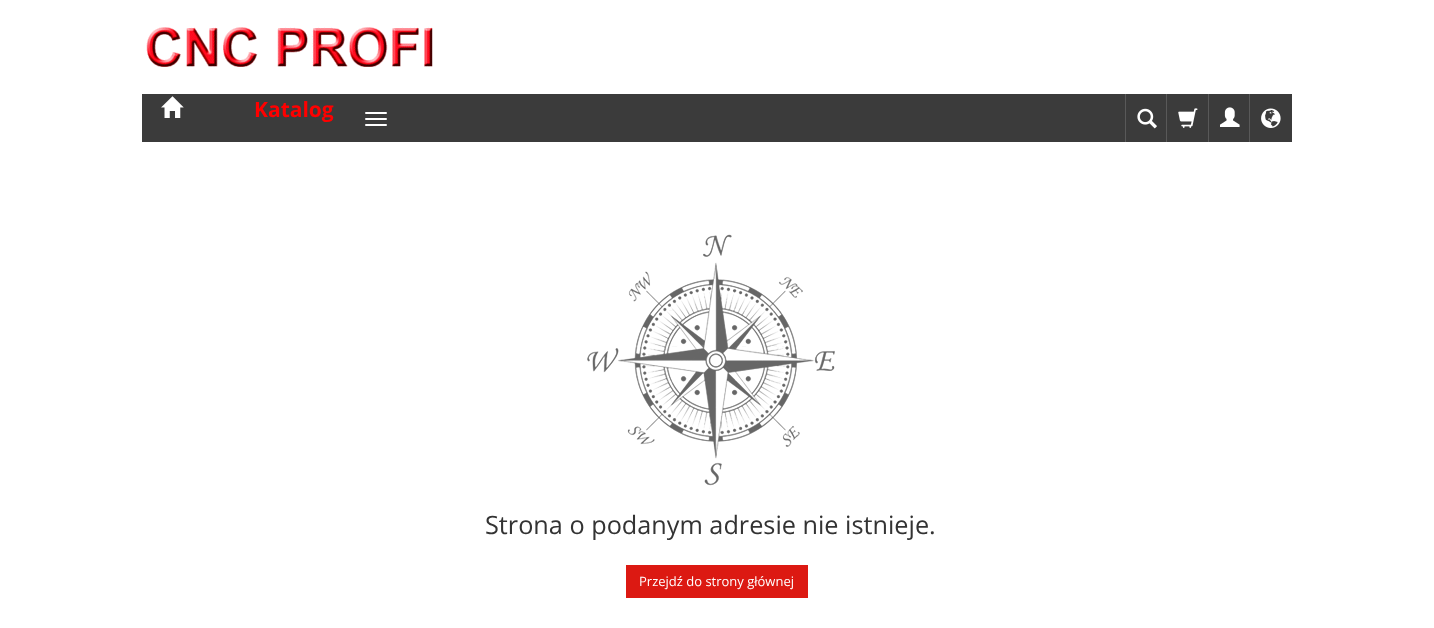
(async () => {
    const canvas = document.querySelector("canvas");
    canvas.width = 1434;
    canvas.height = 628;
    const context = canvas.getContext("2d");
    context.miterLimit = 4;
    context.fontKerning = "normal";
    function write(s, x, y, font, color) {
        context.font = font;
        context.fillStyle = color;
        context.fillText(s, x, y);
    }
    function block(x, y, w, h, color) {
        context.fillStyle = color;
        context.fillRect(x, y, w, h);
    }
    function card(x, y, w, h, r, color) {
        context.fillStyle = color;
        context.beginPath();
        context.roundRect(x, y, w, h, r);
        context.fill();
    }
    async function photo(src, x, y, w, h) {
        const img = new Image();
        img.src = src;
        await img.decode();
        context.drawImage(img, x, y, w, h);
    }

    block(0, 0, 1434, 628, "rgb(255, 255, 255)");
    await photo("media/1.png", 146, 27, 287, 40);
    block(142, 94, 1150, 48, "rgb(59, 59, 59)");
    await photo("media/2.png", 161, 96, 23, 22);
    write("Katalog", 254, 117, "bold 21px Open Sans", "rgb(255, 0, 0)");
    card(365, 112, 22, 2, 1, "rgb(255, 255, 255)");
    card(365, 118, 22, 2, 1, "rgb(255, 255, 255)");
    card(365, 124, 22, 2, 1, "rgb(255, 255, 255)");
    block(1125, 94, 1, 48, "rgb(89, 89, 89)");
    await photo("media/3.png", 1137, 108, 20, 21);
    block(1166, 94, 1, 48, "rgb(89, 89, 89)");
    await photo("media/4.png", 1178, 108, 20, 20);
    block(1208, 94, 1, 48, "rgb(89, 89, 89)");
    await photo("media/5.png", 1220, 107, 20, 20);
    block(1249, 94, 1, 48, "rgb(89, 89, 89)");
    await photo("media/6.png", 1261, 108, 20, 20);
    await photo("media/7.png", 587, 234, 248, 252);
    write("Strona o podanym adresie nie istnieje.", 485, 534, "25.25px Open Sans", "rgb(51, 51, 51)");
    block(626, 565, 182, 33, "rgb(220, 25, 18)");
    write("Przejdź do strony głównej", 639, 586, "13px Open Sans", "rgb(255, 255, 255)");
})();
